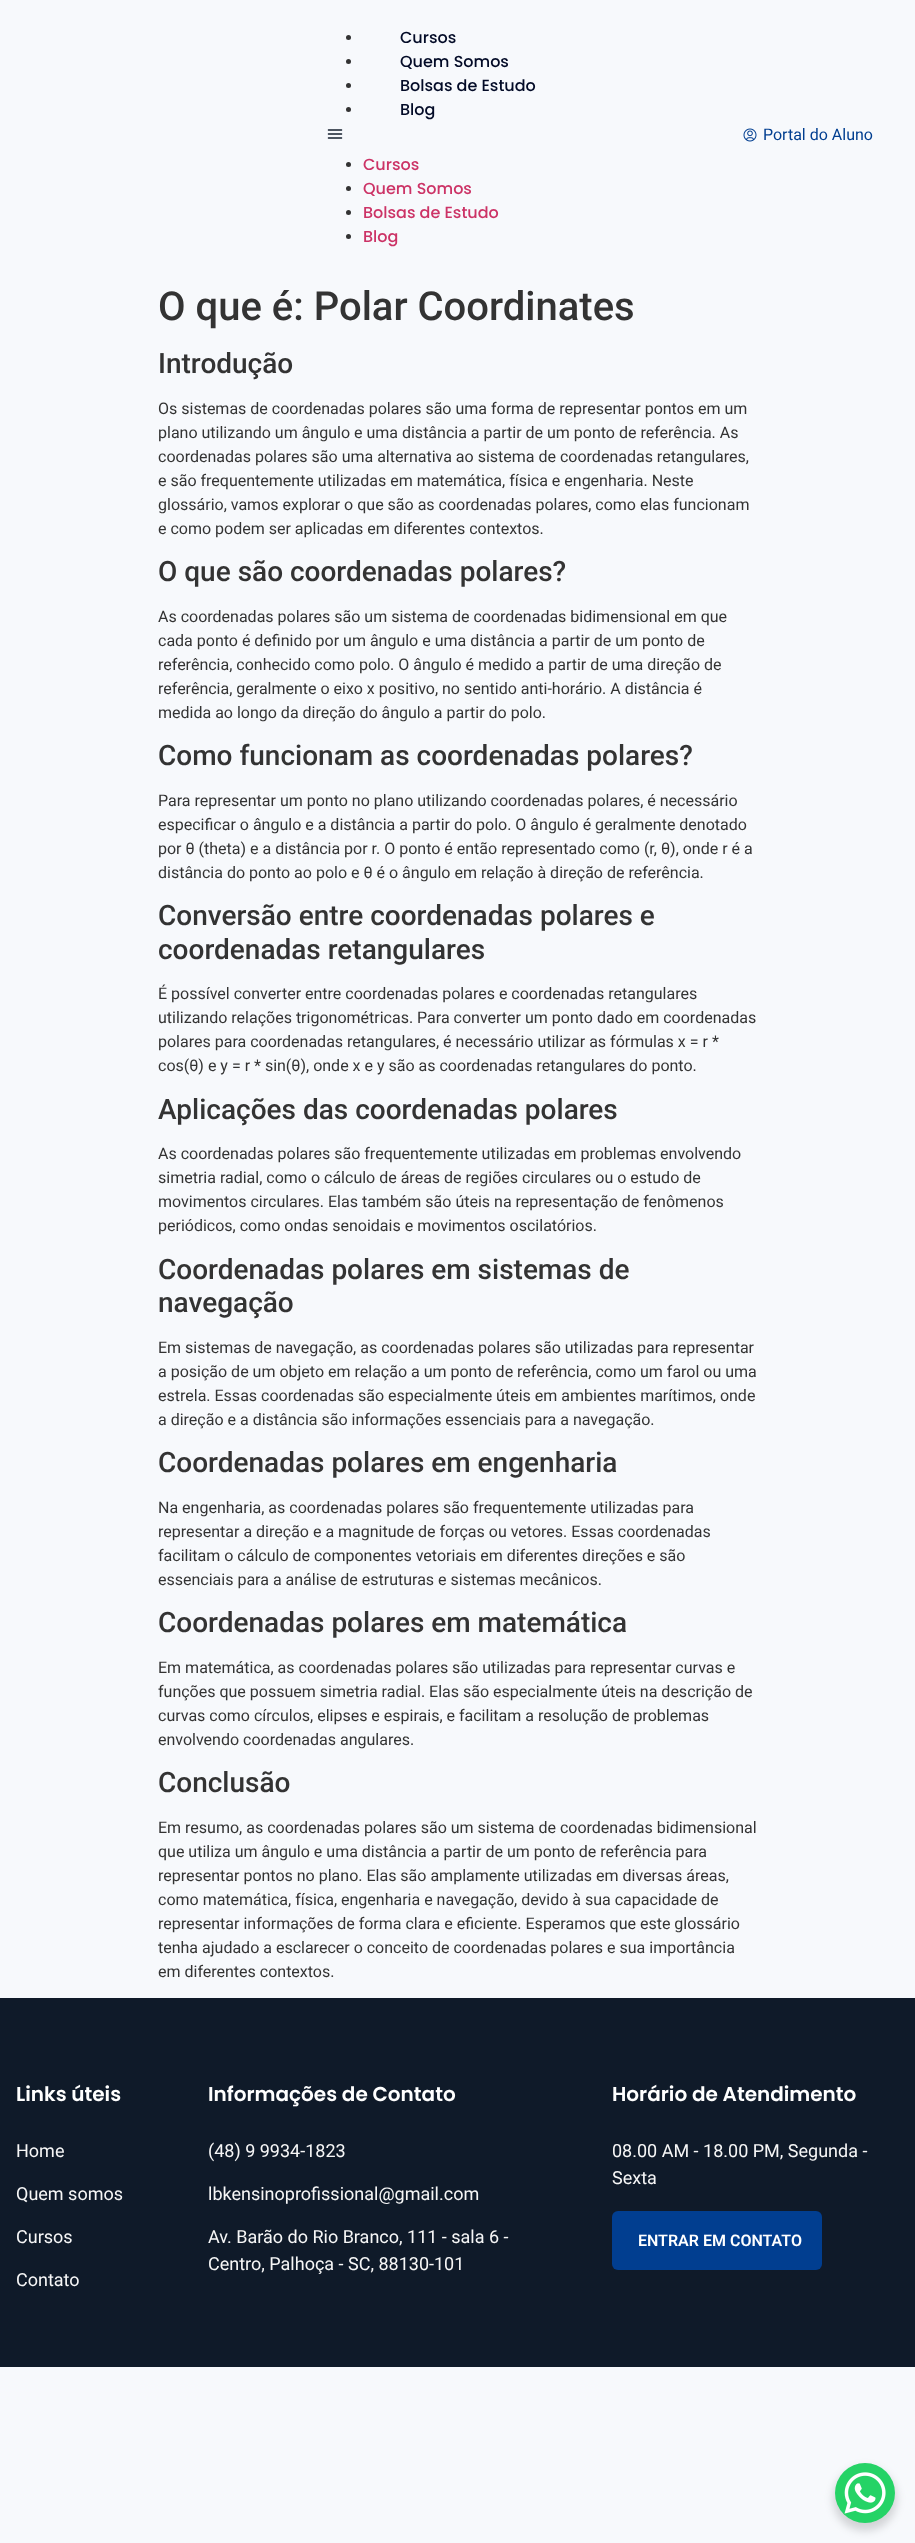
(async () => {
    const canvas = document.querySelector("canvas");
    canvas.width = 915;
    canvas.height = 2543;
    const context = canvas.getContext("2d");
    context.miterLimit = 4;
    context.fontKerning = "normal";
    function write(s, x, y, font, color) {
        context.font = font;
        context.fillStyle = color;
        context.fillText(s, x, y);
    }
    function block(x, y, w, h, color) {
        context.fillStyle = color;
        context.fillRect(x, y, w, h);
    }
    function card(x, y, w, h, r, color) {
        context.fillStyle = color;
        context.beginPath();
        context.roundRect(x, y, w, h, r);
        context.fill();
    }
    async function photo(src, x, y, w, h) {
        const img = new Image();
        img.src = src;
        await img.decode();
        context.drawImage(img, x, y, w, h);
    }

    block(0, 0, 915, 2543, "rgb(247, 249, 252)");
    context.fillStyle = "rgb(51, 51, 51)";
    context.beginPath();
    context.arc(348.5, 37.5, 2.5, 0, Math.PI * 2);
    context.fill();
    write("Cursos", 400, 43, "500 16px Poppins", "rgb(3, 11, 39)");
    context.fillStyle = "rgb(51, 51, 51)";
    context.beginPath();
    context.arc(348.5, 61.5, 2.5, 0, Math.PI * 2);
    context.fill();
    write("Quem Somos", 400, 67, "500 16px Poppins", "rgb(3, 11, 39)");
    context.fillStyle = "rgb(51, 51, 51)";
    context.beginPath();
    context.arc(348.5, 85.5, 2.5, 0, Math.PI * 2);
    context.fill();
    write("Bolsas de Estudo", 400, 91, "500 16px Poppins", "rgb(3, 11, 39)");
    context.fillStyle = "rgb(51, 51, 51)";
    context.beginPath();
    context.arc(348.5, 109.5, 2.5, 0, Math.PI * 2);
    context.fill();
    write("Blog", 400, 115, "500 16px Poppins", "rgb(3, 11, 39)");
    await photo("media/1.png", 327, 129, 16, 10);
    context.fillStyle = "rgb(51, 51, 51)";
    context.beginPath();
    context.arc(348.5, 164.5, 2.5, 0, Math.PI * 2);
    context.fill();
    write("Cursos", 363, 170, "500 16px Poppins", "rgb(204, 51, 102)");
    context.fillStyle = "rgb(51, 51, 51)";
    context.beginPath();
    context.arc(348.5, 188.5, 2.5, 0, Math.PI * 2);
    context.fill();
    write("Quem Somos", 363, 194, "500 16px Poppins", "rgb(204, 51, 102)");
    context.fillStyle = "rgb(51, 51, 51)";
    context.beginPath();
    context.arc(348.5, 212.5, 2.5, 0, Math.PI * 2);
    context.fill();
    write("Bolsas de Estudo", 363, 218, "500 16px Poppins", "rgb(204, 51, 102)");
    context.fillStyle = "rgb(51, 51, 51)";
    context.beginPath();
    context.arc(348.5, 236.5, 2.5, 0, Math.PI * 2);
    context.fill();
    write("Blog", 363, 242, "500 16px Poppins", "rgb(204, 51, 102)");
    await photo("media/2.png", 743, 128, 14, 14);
    write("Portal do Aluno", 763, 140, "16px Roboto", "rgb(1, 62, 144)");
    write("O que é: Polar Coordinates", 158, 320, "500 40px Roboto", "rgb(51, 51, 51)");
    write("Introdução", 158, 373, "500 28px Roboto", "rgb(51, 51, 51)");
    write("Os sistemas de coordenadas polares são uma forma de representar pontos em um", 158, 414, "16px Roboto", "rgb(51, 51, 51)");
    write("plano utilizando um ângulo e uma distância a partir de um ponto de referência. As", 158, 438, "16px Roboto", "rgb(51, 51, 51)");
    write("coordenadas polares são uma alternativa ao sistema de coordenadas retangulares,", 158, 462, "16px Roboto", "rgb(51, 51, 51)");
    write("e são frequentemente utilizadas em matemática, física e engenharia. Neste", 158, 486, "16px Roboto", "rgb(51, 51, 51)");
    write("glossário, vamos explorar o que são as coordenadas polares, como elas funcionam", 158, 510, "16px Roboto", "rgb(51, 51, 51)");
    write("e como podem ser aplicadas em diferentes contextos.", 158, 534, "16px Roboto", "rgb(51, 51, 51)");
    write("O que são coordenadas polares?", 158, 581, "500 28px Roboto", "rgb(51, 51, 51)");
    write("As coordenadas polares são um sistema de coordenadas bidimensional em que", 158, 622, "16px Roboto", "rgb(51, 51, 51)");
    write("cada ponto é definido por um ângulo e uma distância a partir de um ponto de", 158, 646, "16px Roboto", "rgb(51, 51, 51)");
    write("referência, conhecido como polo. O ângulo é medido a partir de uma direção de", 158, 670, "16px Roboto", "rgb(51, 51, 51)");
    write("referência, geralmente o eixo x positivo, no sentido anti-horário. A distância é", 158, 694, "16px Roboto", "rgb(51, 51, 51)");
    write("medida ao longo da direção do ângulo a partir do polo.", 158, 718, "16px Roboto", "rgb(51, 51, 51)");
    write("Como funcionam as coordenadas polares?", 158, 765, "500 28px Roboto", "rgb(51, 51, 51)");
    write("Para representar um ponto no plano utilizando coordenadas polares, é necessário", 158, 806, "16px Roboto", "rgb(51, 51, 51)");
    write("especificar o ângulo e a distância a partir do polo. O ângulo é geralmente denotado", 158, 830, "16px Roboto", "rgb(51, 51, 51)");
    write("por θ (theta) e a distância por r. O ponto é então representado como (r, θ), onde r é a", 158, 854, "16px Roboto", "rgb(51, 51, 51)");
    write("distância do ponto ao polo e θ é o ângulo em relação à direção de referência.", 158, 878, "16px Roboto", "rgb(51, 51, 51)");
    write("Conversão entre coordenadas polares e", 158, 925, "500 28px Roboto", "rgb(51, 51, 51)");
    write("coordenadas retangulares", 158, 959, "500 28px Roboto", "rgb(51, 51, 51)");
    write("É possível converter entre coordenadas polares e coordenadas retangulares", 158, 999, "16px Roboto", "rgb(51, 51, 51)");
    write("utilizando relações trigonométricas. Para converter um ponto dado em coordenadas", 158, 1023, "16px Roboto", "rgb(51, 51, 51)");
    write("polares para coordenadas retangulares, é necessário utilizar as fórmulas x = r *", 158, 1047, "16px Roboto", "rgb(51, 51, 51)");
    write("cos(θ) e y = r * sin(θ), onde x e y são as coordenadas retangulares do ponto.", 158, 1071, "16px Roboto", "rgb(51, 51, 51)");
    write("Aplicações das coordenadas polares", 158, 1119, "500 28px Roboto", "rgb(51, 51, 51)");
    write("As coordenadas polares são frequentemente utilizadas em problemas envolvendo", 158, 1159, "16px Roboto", "rgb(51, 51, 51)");
    write("simetria radial, como o cálculo de áreas de regiões circulares ou o estudo de", 158, 1183, "16px Roboto", "rgb(51, 51, 51)");
    write("movimentos circulares. Elas também são úteis na representação de fenômenos", 158, 1207, "16px Roboto", "rgb(51, 51, 51)");
    write("periódicos, como ondas senoidais e movimentos oscilatórios.", 158, 1231, "16px Roboto", "rgb(51, 51, 51)");
    write("Coordenadas polares em sistemas de", 158, 1279, "500 28px Roboto", "rgb(51, 51, 51)");
    write("navegação", 158, 1312, "500 28px Roboto", "rgb(51, 51, 51)");
    write("Em sistemas de navegação, as coordenadas polares são utilizadas para representar", 158, 1353, "16px Roboto", "rgb(51, 51, 51)");
    write("a posição de um objeto em relação a um ponto de referência, como um farol ou uma", 158, 1377, "16px Roboto", "rgb(51, 51, 51)");
    write("estrela. Essas coordenadas são especialmente úteis em ambientes marítimos, onde", 158, 1401, "16px Roboto", "rgb(51, 51, 51)");
    write("a direção e a distância são informações essenciais para a navegação.", 158, 1425, "16px Roboto", "rgb(51, 51, 51)");
    write("Coordenadas polares em engenharia", 158, 1472, "500 28px Roboto", "rgb(51, 51, 51)");
    write("Na engenharia, as coordenadas polares são frequentemente utilizadas para", 158, 1513, "16px Roboto", "rgb(51, 51, 51)");
    write("representar a direção e a magnitude de forças ou vetores. Essas coordenadas", 158, 1537, "16px Roboto", "rgb(51, 51, 51)");
    write("facilitam o cálculo de componentes vetoriais em diferentes direções e são", 158, 1561, "16px Roboto", "rgb(51, 51, 51)");
    write("essenciais para a análise de estruturas e sistemas mecânicos.", 158, 1585, "16px Roboto", "rgb(51, 51, 51)");
    write("Coordenadas polares em matemática", 158, 1632, "500 28px Roboto", "rgb(51, 51, 51)");
    write("Em matemática, as coordenadas polares são utilizadas para representar curvas e", 158, 1673, "16px Roboto", "rgb(51, 51, 51)");
    write("funções que possuem simetria radial. Elas são especialmente úteis na descrição de", 158, 1697, "16px Roboto", "rgb(51, 51, 51)");
    write("curvas como círculos, elipses e espirais, e facilitam a resolução de problemas", 158, 1721, "16px Roboto", "rgb(51, 51, 51)");
    write("envolvendo coordenadas angulares.", 158, 1745, "16px Roboto", "rgb(51, 51, 51)");
    write("Conclusão", 158, 1792, "500 28px Roboto", "rgb(51, 51, 51)");
    write("Em resumo, as coordenadas polares são um sistema de coordenadas bidimensional", 158, 1833, "16px Roboto", "rgb(51, 51, 51)");
    write("que utiliza um ângulo e uma distância a partir de um ponto de referência para", 158, 1857, "16px Roboto", "rgb(51, 51, 51)");
    write("representar pontos no plano. Elas são amplamente utilizadas em diversas áreas,", 158, 1881, "16px Roboto", "rgb(51, 51, 51)");
    write("como matemática, física, engenharia e navegação, devido à sua capacidade de", 158, 1905, "16px Roboto", "rgb(51, 51, 51)");
    write("representar informações de forma clara e eficiente. Esperamos que este glossário", 158, 1929, "16px Roboto", "rgb(51, 51, 51)");
    write("tenha ajudado a esclarecer o conceito de coordenadas polares e sua importância", 158, 1953, "16px Roboto", "rgb(51, 51, 51)");
    write("em diferentes contextos.", 158, 1977, "16px Roboto", "rgb(51, 51, 51)");
    block(0, 1998, 915, 369, "rgb(15, 26, 41)");
    write("Links úteis", 16, 2101, "600 20px Poppins", "rgb(255, 255, 255)");
    write("Home", 16, 2157, "18px Roboto", "rgb(247, 247, 247)");
    write("Quem somos", 16, 2200, "18px Roboto", "rgb(247, 247, 247)");
    write("Cursos", 16, 2243, "18px Roboto", "rgb(247, 247, 247)");
    write("Contato", 16, 2286, "18px Roboto", "rgb(247, 247, 247)");
    write("Informações de Contato", 208, 2101, "600 20px Poppins", "rgb(255, 255, 255)");
    write("(48) 9 9934-1823", 208, 2157, "18px Roboto", "rgb(247, 247, 247)");
    write("lbkensinoprofissional@gmail.com", 208, 2200, "18px Roboto", "rgb(247, 247, 247)");
    write("Av. Barão do Rio Branco, 111 - sala 6 -", 208, 2243, "18px Roboto", "rgb(247, 247, 247)");
    write("Centro, Palhoça - SC, 88130-101", 208, 2270, "18px Roboto", "rgb(247, 247, 247)");
    write("Horário de Atendimento", 612, 2101, "600 20px Poppins", "rgb(255, 255, 255)");
    write("08.00 AM - 18.00 PM, Segunda -", 612, 2157, "18px Roboto", "rgb(247, 247, 247)");
    write("Sexta", 612, 2184, "18px Roboto", "rgb(247, 247, 247)");
    card(612, 2211, 210, 59, 6, "rgb(1, 62, 144)");
    write("ENTRAR EM CONTATO", 638, 2246, "600 16px Roboto", "rgb(255, 255, 255)");
    context.fillStyle = "rgba(0, 0, 0, 0.15)";
    context.filter = "blur(4px)";
    context.beginPath();
    context.roundRect(833, 2467, 64, 64, 32);
    context.fill();
    context.filter = "none";
    context.fillStyle = "rgb(37, 211, 102)";
    context.beginPath();
    context.arc(865, 2493, 30, 0, Math.PI * 2);
    context.fill();
    await photo("media/3.png", 844, 2472, 42, 42);
})();
